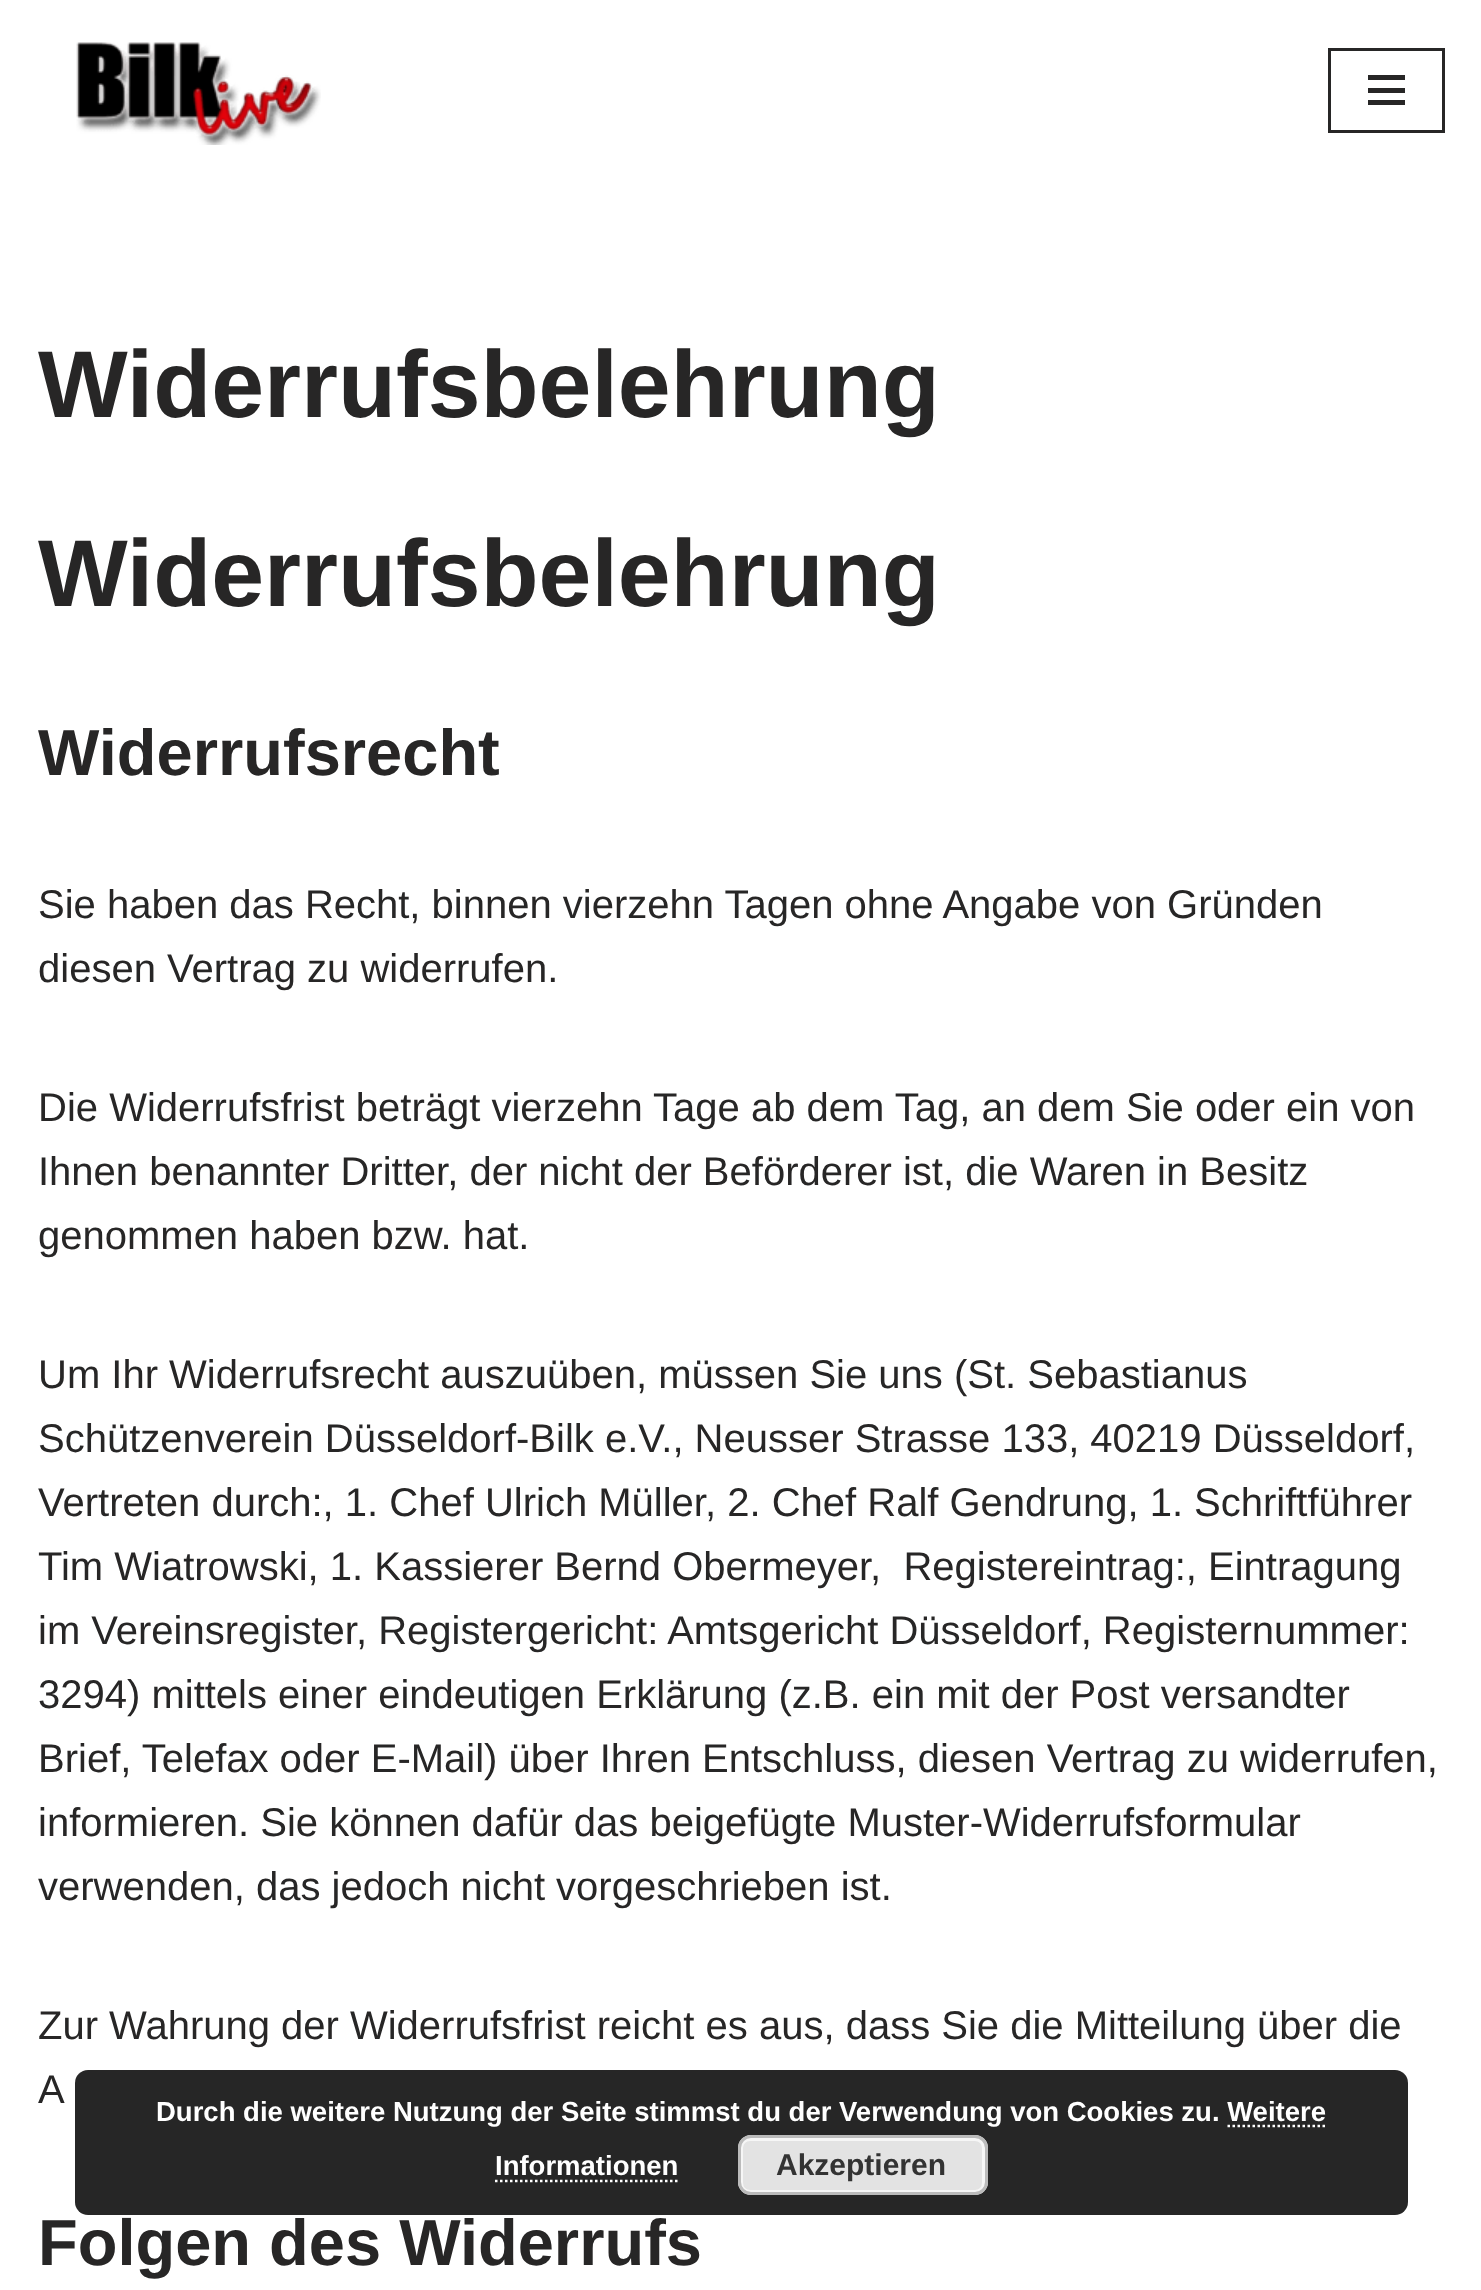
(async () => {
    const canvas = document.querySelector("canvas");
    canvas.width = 1481;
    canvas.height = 2290;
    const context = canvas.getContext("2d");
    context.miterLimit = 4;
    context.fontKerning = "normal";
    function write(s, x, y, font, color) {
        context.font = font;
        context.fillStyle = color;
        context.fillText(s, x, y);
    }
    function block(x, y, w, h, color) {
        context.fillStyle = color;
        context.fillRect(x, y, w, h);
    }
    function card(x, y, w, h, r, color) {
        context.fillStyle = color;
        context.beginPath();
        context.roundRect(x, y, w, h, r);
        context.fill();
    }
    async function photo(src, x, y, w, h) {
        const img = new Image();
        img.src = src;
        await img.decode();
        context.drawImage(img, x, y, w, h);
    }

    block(0, 0, 1481, 2290, "rgb(255, 255, 255)");
    await photo("media/1.png", 76, 42, 245, 103);
    context.strokeStyle = "rgb(39, 38, 38)";
    context.lineWidth = 3;
    context.strokeRect(1329.5, 49.5, 114, 82);
    block(1368, 75, 37, 5, "rgb(39, 38, 38)");
    block(1368, 88, 37, 5, "rgb(39, 38, 38)");
    block(1368, 100, 37, 5, "rgb(39, 38, 38)");
    write("Widerrufsbelehrung", 38, 417, "bold 95px Liberation Sans", "rgb(39, 38, 38)");
    write("Widerrufsbelehrung", 38, 606, "bold 95px Liberation Sans", "rgb(39, 38, 38)");
    write("Widerrufsrecht", 38, 775, "bold 65px Liberation Sans", "rgb(39, 38, 38)");
    write("Sie haben das Recht, binnen vierzehn Tagen ohne Angabe von Gründen", 38, 918, "40px Liberation Sans", "rgb(39, 38, 38)");
    write("diesen Vertrag zu widerrufen.", 38, 982, "40px Liberation Sans", "rgb(39, 38, 38)");
    write("Die Widerrufsfrist beträgt vierzehn Tage ab dem Tag, an dem Sie oder ein von", 38, 1121, "40px Liberation Sans", "rgb(39, 38, 38)");
    write("Ihnen benannter Dritter, der nicht der Beförderer ist, die Waren in Besitz", 38, 1185, "40px Liberation Sans", "rgb(39, 38, 38)");
    write("genommen haben bzw. hat.", 38, 1249, "40px Liberation Sans", "rgb(39, 38, 38)");
    write("Um Ihr Widerrufsrecht auszuüben, müssen Sie uns (St. Sebastianus", 38, 1388, "40px Liberation Sans", "rgb(39, 38, 38)");
    write("Schützenverein Düsseldorf-Bilk e.V., Neusser Strasse 133, 40219 Düsseldorf,", 38, 1452, "40px Liberation Sans", "rgb(39, 38, 38)");
    write("Vertreten durch:, 1. Chef Ulrich Müller, 2. Chef Ralf Gendrung, 1. Schriftführer", 38, 1516, "40px Liberation Sans", "rgb(39, 38, 38)");
    write("Tim Wiatrowski, 1. Kassierer Bernd Obermeyer,  Registereintrag:, Eintragung", 38, 1580, "40px Liberation Sans", "rgb(39, 38, 38)");
    write("im Vereinsregister, Registergericht: Amtsgericht Düsseldorf, Registernummer:", 38, 1644, "40px Liberation Sans", "rgb(39, 38, 38)");
    write("3294) mittels einer eindeutigen Erklärung (z.B. ein mit der Post versandter", 38, 1708, "40px Liberation Sans", "rgb(39, 38, 38)");
    write("Brief, Telefax oder E-Mail) über Ihren Entschluss, diesen Vertrag zu widerrufen,", 38, 1772, "40px Liberation Sans", "rgb(39, 38, 38)");
    write("informieren. Sie können dafür das beigefügte Muster-Widerrufsformular", 38, 1836, "40px Liberation Sans", "rgb(39, 38, 38)");
    write("verwenden, das jedoch nicht vorgeschrieben ist.", 38, 1900, "40px Liberation Sans", "rgb(39, 38, 38)");
    write("Zur Wahrung der Widerrufsfrist reicht es aus, dass Sie die Mitteilung über die", 38, 2039, "40px Liberation Sans", "rgb(39, 38, 38)");
    write("A", 38, 2103, "40px Liberation Sans", "rgb(39, 38, 38)");
    write("Folgen des Widerrufs", 38, 2265, "bold 65px Liberation Sans", "rgb(39, 38, 38)");
    card(75, 2070, 1333, 145, 13, "rgba(0, 0, 0, 0.85)");
    write("Durch die weitere Nutzung der Seite stimmst du der Verwendung von Cookies zu. Weitere", 156, 2121, "bold 27.5px Liberation Sans", "rgb(255, 255, 255)");
    write("Informationen", 495, 2175, "bold 27.5px Liberation Sans", "rgb(255, 255, 255)");
    context.beginPath();
    context.moveTo(1227.5, 2126);
    context.lineTo(1325, 2126);
    context.strokeStyle = "rgb(255, 255, 255)";
    context.lineWidth = 2.5;
    context.setLineDash([2.5, 2.5]);
    context.stroke();
    context.beginPath();
    context.moveTo(495, 2181);
    context.lineTo(677.5, 2181);
    context.stroke();
    card(738, 2135, 250, 60, 13, "rgb(227, 227, 227)");
    context.beginPath();
    context.roundRect(741.5, 2139.5, 242, 52, 8.5);
    context.strokeStyle = "rgb(246, 246, 246)";
    context.lineWidth = 3;
    context.setLineDash([]);
    context.stroke();
    context.beginPath();
    context.roundRect(739.5, 2136.5, 247, 57, 11.5);
    context.strokeStyle = "rgb(187, 187, 187)";
    context.stroke();
    write("Akzeptieren", 776, 2175, "bold 30px Liberation Sans", "rgb(51, 51, 51)");
})();
